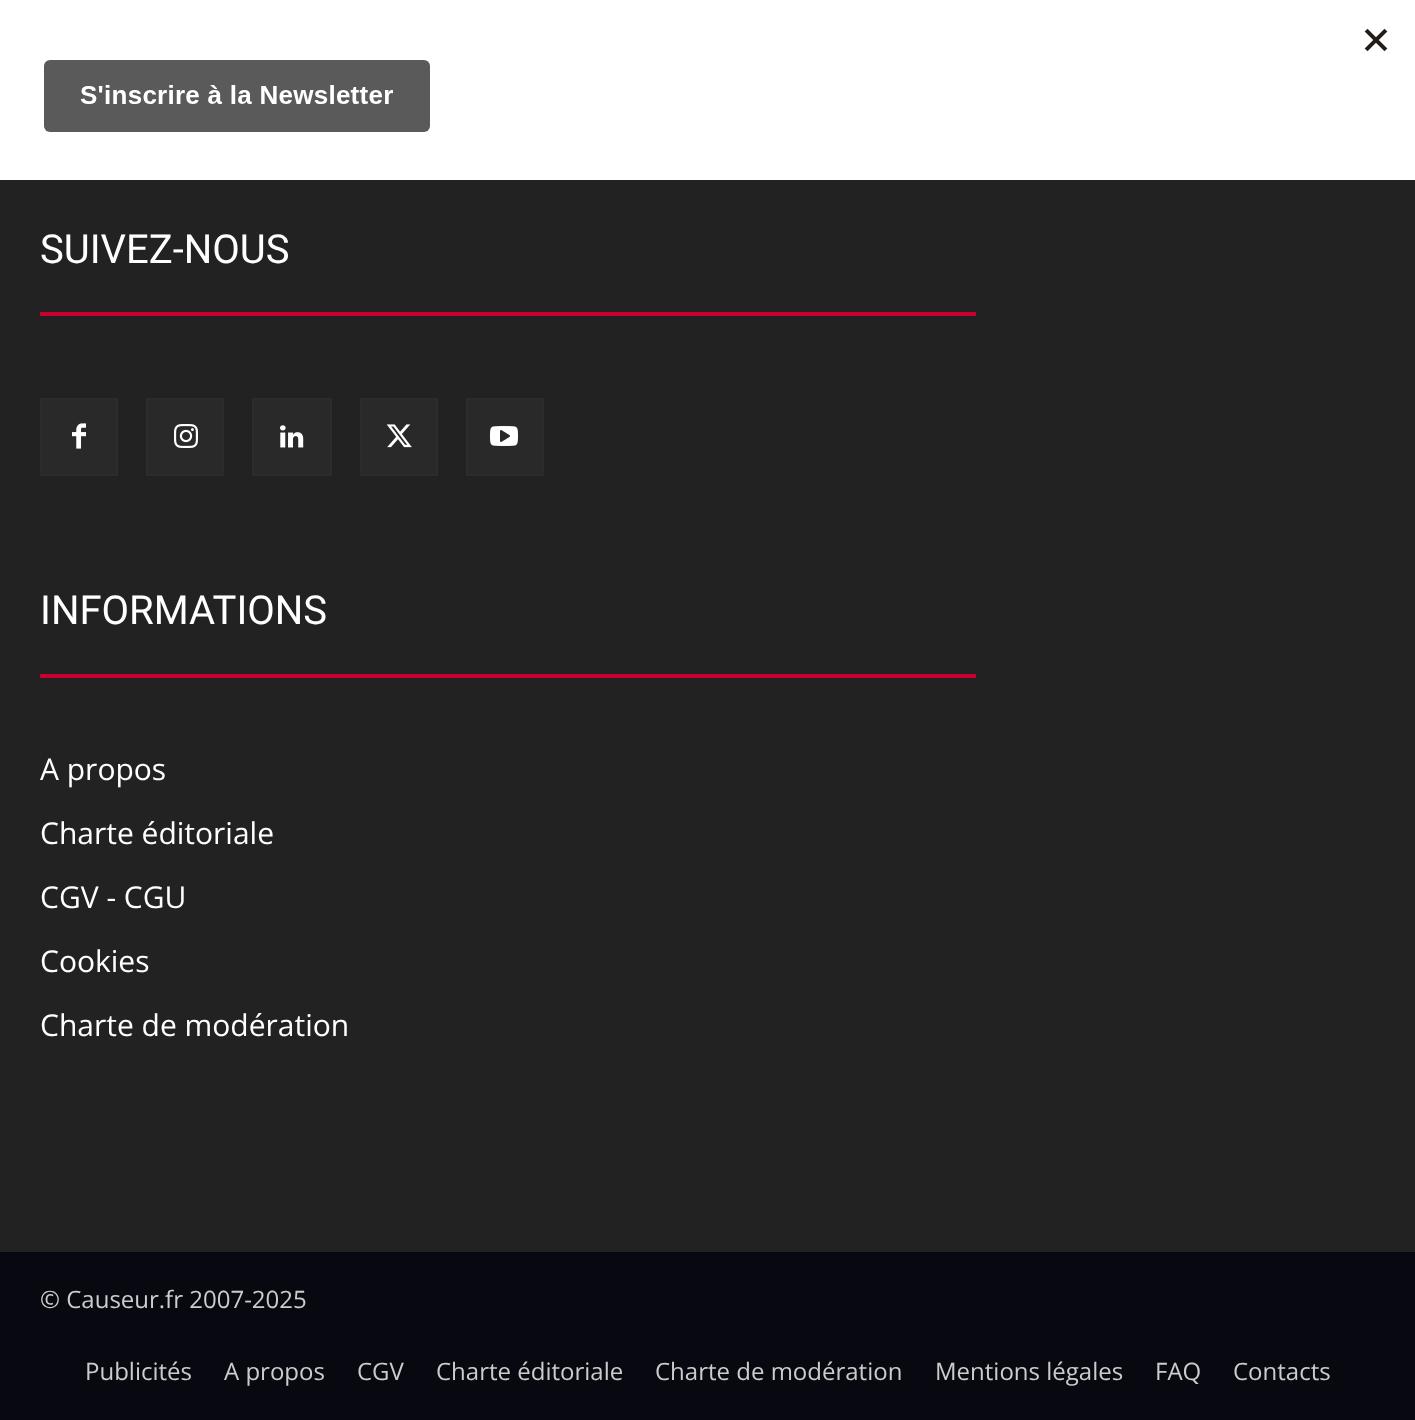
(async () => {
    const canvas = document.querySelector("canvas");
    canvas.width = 1415;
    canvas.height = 1420;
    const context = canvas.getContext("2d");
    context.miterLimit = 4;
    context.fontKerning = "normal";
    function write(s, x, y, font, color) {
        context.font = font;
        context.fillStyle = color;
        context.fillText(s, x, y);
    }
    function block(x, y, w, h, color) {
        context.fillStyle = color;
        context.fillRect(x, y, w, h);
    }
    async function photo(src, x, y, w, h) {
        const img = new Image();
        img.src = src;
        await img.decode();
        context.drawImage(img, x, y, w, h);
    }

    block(0, 0, 1415, 1420, "rgb(34, 34, 34)");
    block(0, 0, 1415, 180, "rgb(255, 255, 255)");
    await photo("media/1.png", 44, 28, 1344, 104);
    write("SUIVEZ-NOUS", 40, 263, "40px Roboto", "rgb(255, 255, 255)");
    block(40, 312, 936, 4, "rgb(201, 0, 45)");
    context.fillStyle = "rgb(41, 41, 41)";
    context.beginPath();
    context.rect(41, 399, 76, 76);
    context.fill();
    context.strokeStyle = "rgb(46, 44, 42)";
    context.lineWidth = 2;
    context.stroke();
    await photo("media/2.png", 72, 423, 14, 26);
    context.beginPath();
    context.rect(147, 399, 76, 76);
    context.fill();
    context.stroke();
    await photo("media/3.png", 174, 424, 24, 24);
    context.beginPath();
    context.rect(253, 399, 78, 76);
    context.fill();
    context.stroke();
    await photo("media/4.png", 280, 425, 24, 23);
    context.beginPath();
    context.rect(361, 399, 76, 76);
    context.fill();
    context.stroke();
    await photo("media/5.png", 386, 424, 26, 24);
    context.beginPath();
    context.rect(467, 399, 76, 76);
    context.fill();
    context.stroke();
    await photo("media/6.png", 490, 426, 28, 20);
    write("INFORMATIONS", 40, 624, "40px Roboto", "rgb(255, 255, 255)");
    block(40, 674, 936, 4, "rgb(201, 0, 45)");
    write("A propos", 40, 780, "30px Open Sans", "rgb(255, 255, 255)");
    write("Charte éditoriale", 40, 844, "30px Open Sans", "rgb(255, 255, 255)");
    write("CGV - CGU", 40, 908, "30px Open Sans", "rgb(255, 255, 255)");
    write("Cookies", 40, 972, "30px Open Sans", "rgb(255, 255, 255)");
    write("Charte de modération", 40, 1036, "30px Open Sans", "rgb(255, 255, 255)");
    block(0, 1252, 1415, 168, "rgb(8, 8, 16)");
    write("© Causeur.fr 2007-2025", 40, 1308, "24px Open Sans", "rgb(204, 204, 204)");
    write("Publicités", 85, 1380, "24px Open Sans", "rgb(204, 204, 204)");
    write("A propos", 224, 1380, "24px Open Sans", "rgb(204, 204, 204)");
    write("CGV", 357, 1380, "24px Open Sans", "rgb(204, 204, 204)");
    write("Charte éditoriale", 436, 1380, "24px Open Sans", "rgb(204, 204, 204)");
    write("Charte de modération", 655, 1380, "24px Open Sans", "rgb(204, 204, 204)");
    write("Mentions légales", 935, 1380, "24px Open Sans", "rgb(204, 204, 204)");
    write("FAQ", 1155, 1380, "24px Open Sans", "rgb(204, 204, 204)");
    write("Contacts", 1233, 1380, "24px Open Sans", "rgb(204, 204, 204)");
})();
